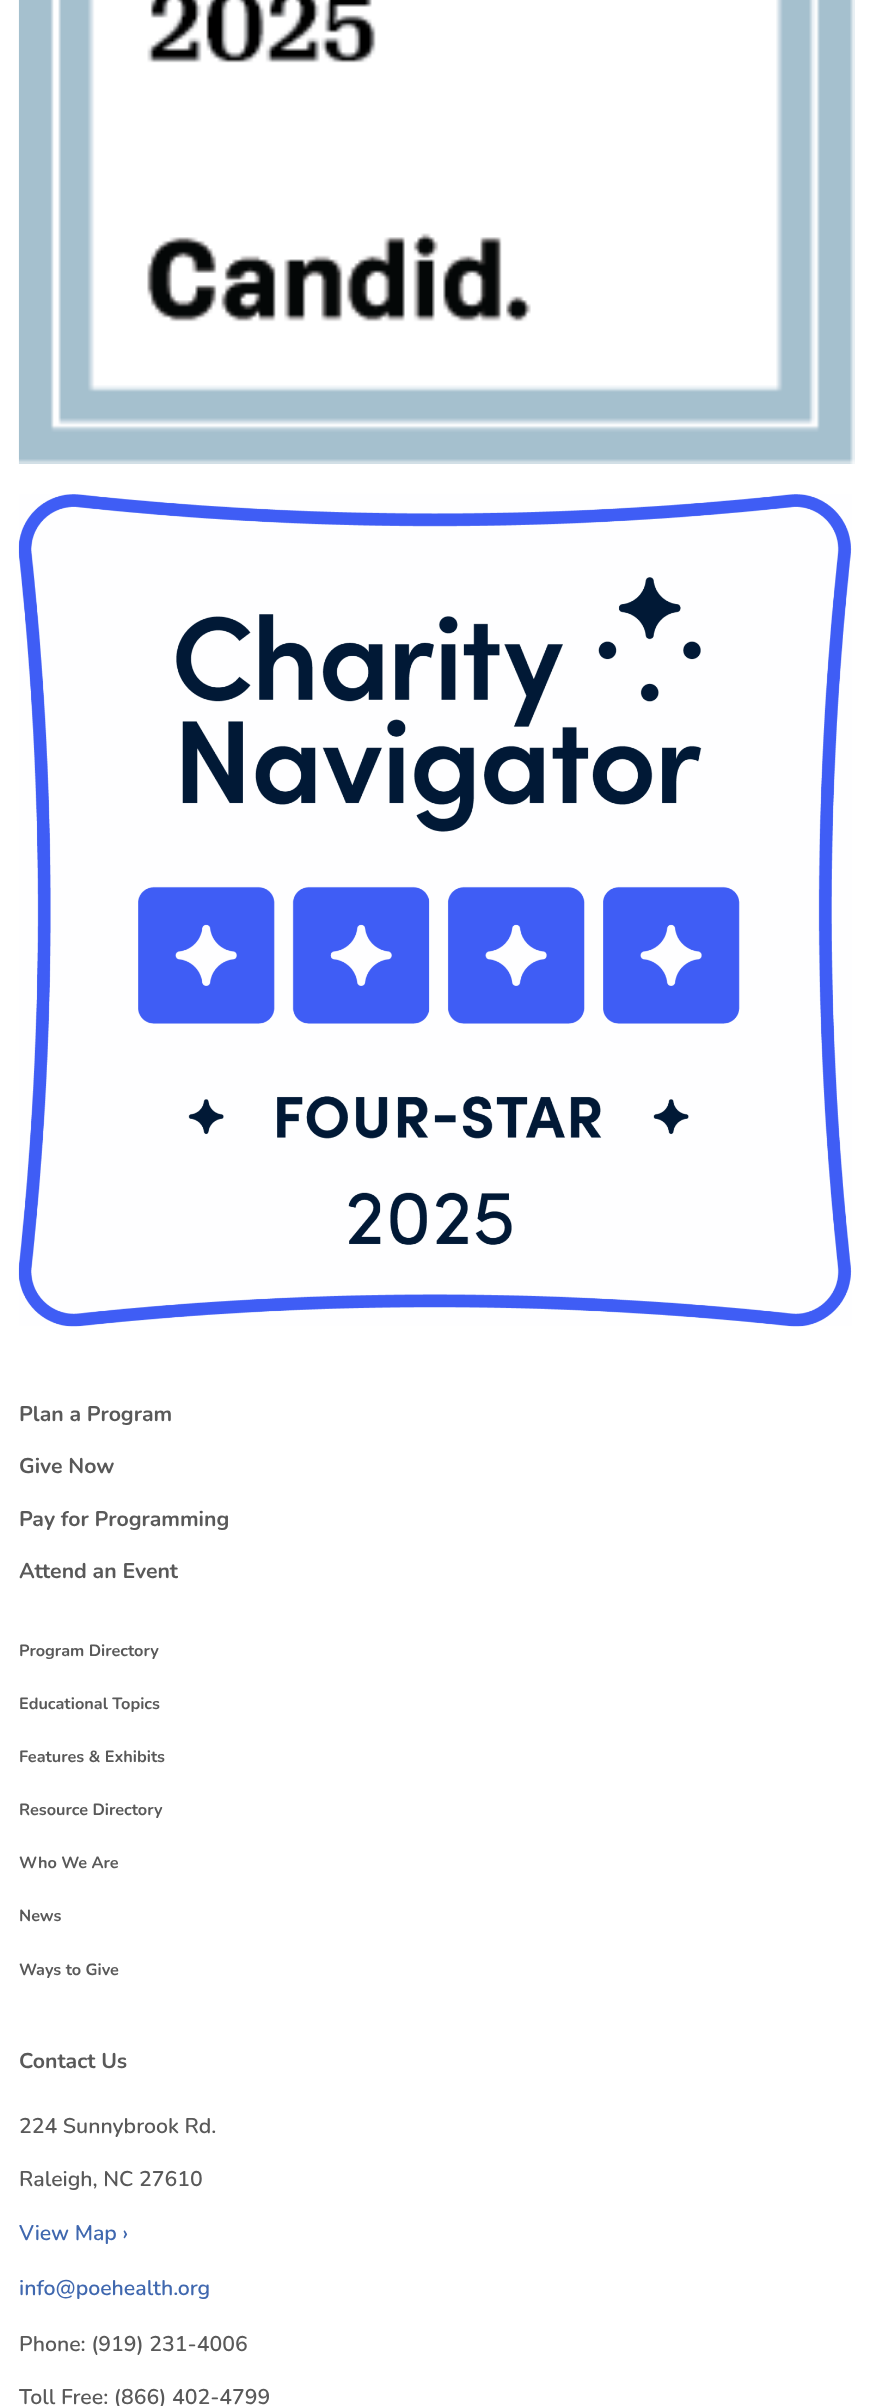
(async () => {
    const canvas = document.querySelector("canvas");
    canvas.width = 873;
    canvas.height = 2406;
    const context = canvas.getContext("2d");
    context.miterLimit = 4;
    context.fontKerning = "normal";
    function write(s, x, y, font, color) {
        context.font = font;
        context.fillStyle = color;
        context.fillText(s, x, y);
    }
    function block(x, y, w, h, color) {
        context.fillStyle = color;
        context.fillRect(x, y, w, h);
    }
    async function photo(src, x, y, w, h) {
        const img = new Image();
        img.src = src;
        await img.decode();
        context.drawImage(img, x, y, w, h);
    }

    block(0, 0, 873, 2406, "rgb(255, 255, 255)");
    await photo("media/1.png", 18, 0, 837, 464);
    await photo("media/2.png", 18, 494, 834, 833);
    write("Plan a Program", 19, 1421, "bold 21.25px Nunito", "rgb(89, 89, 89)");
    write("Give Now", 19, 1473, "bold 21.25px Nunito", "rgb(89, 89, 89)");
    write("Pay for Programming", 19, 1526, "bold 21.25px Nunito", "rgb(89, 89, 89)");
    write("Attend an Event", 19, 1578, "bold 21.25px Nunito", "rgb(89, 89, 89)");
    write("Program Directory", 19, 1656, "bold 16.25px Nunito", "rgb(89, 89, 89)");
    write("Educational Topics", 19, 1709, "bold 16.25px Nunito", "rgb(89, 89, 89)");
    write("Features & Exhibits", 19, 1762, "bold 16.25px Nunito", "rgb(89, 89, 89)");
    write("Resource Directory", 19, 1815, "bold 16.25px Nunito", "rgb(89, 89, 89)");
    write("Who We Are", 19, 1868, "bold 16.25px Nunito", "rgb(89, 89, 89)");
    write("News", 19, 1921, "bold 16.25px Nunito", "rgb(89, 89, 89)");
    write("Ways to Give", 19, 1975, "bold 16.25px Nunito", "rgb(89, 89, 89)");
    write("Contact Us", 19, 2068, "bold 21.25px Nunito", "rgb(89, 89, 89)");
    write("224 Sunnybrook Rd.", 19, 2133, "600 21.25px Nunito", "rgb(89, 89, 89)");
    write("Raleigh, NC 27610", 19, 2186, "600 21.25px Nunito", "rgb(89, 89, 89)");
    write("View Map ›", 19, 2240, "600 21.25px Nunito", "rgb(64, 104, 175)");
    write("info@poehealth.org", 19, 2295, "600 21.25px Nunito", "rgb(64, 104, 175)");
    write("Phone: (919) 231-4006", 19, 2351, "600 21.25px Nunito", "rgb(89, 89, 89)");
    write("Toll Free: (866) 402-4799", 19, 2404, "600 21.25px Nunito", "rgb(89, 89, 89)");
})();
